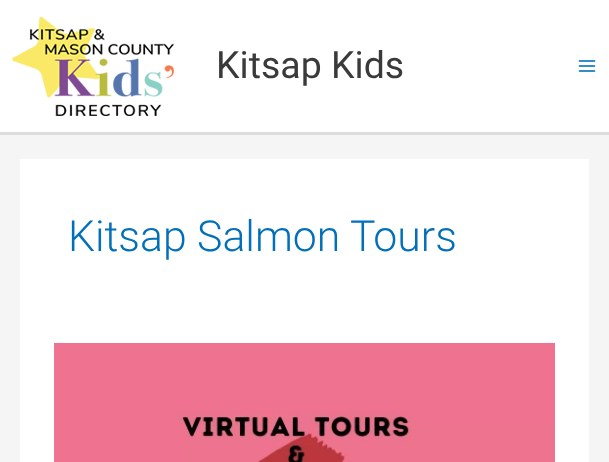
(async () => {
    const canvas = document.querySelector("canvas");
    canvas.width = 609;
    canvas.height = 462;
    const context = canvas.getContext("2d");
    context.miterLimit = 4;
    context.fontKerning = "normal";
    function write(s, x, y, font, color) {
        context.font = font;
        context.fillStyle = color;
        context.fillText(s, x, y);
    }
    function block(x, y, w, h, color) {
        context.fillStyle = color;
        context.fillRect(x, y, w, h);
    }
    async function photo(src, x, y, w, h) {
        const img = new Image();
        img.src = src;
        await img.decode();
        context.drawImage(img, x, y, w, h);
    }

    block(0, 0, 609, 462, "rgb(245, 245, 245)");
    block(0, 0, 609, 132, "rgb(255, 255, 255)");
    block(0, 132, 609, 3, "rgb(221, 221, 221)");
    await photo("media/1.png", 12, 16, 162, 100);
    write("Kitsap Kids", 216, 78, "37.5px Roboto", "rgb(58, 58, 58)");
    await photo("media/2.png", 578, 60, 18, 12);
    block(20, 159, 569, 303, "rgb(255, 255, 255)");
    write("Kitsap Salmon Tours", 68, 251, "300 42.75px Roboto", "rgb(1, 112, 185)");
    await photo("media/3.png", 54, 343, 501, 119);
})();
